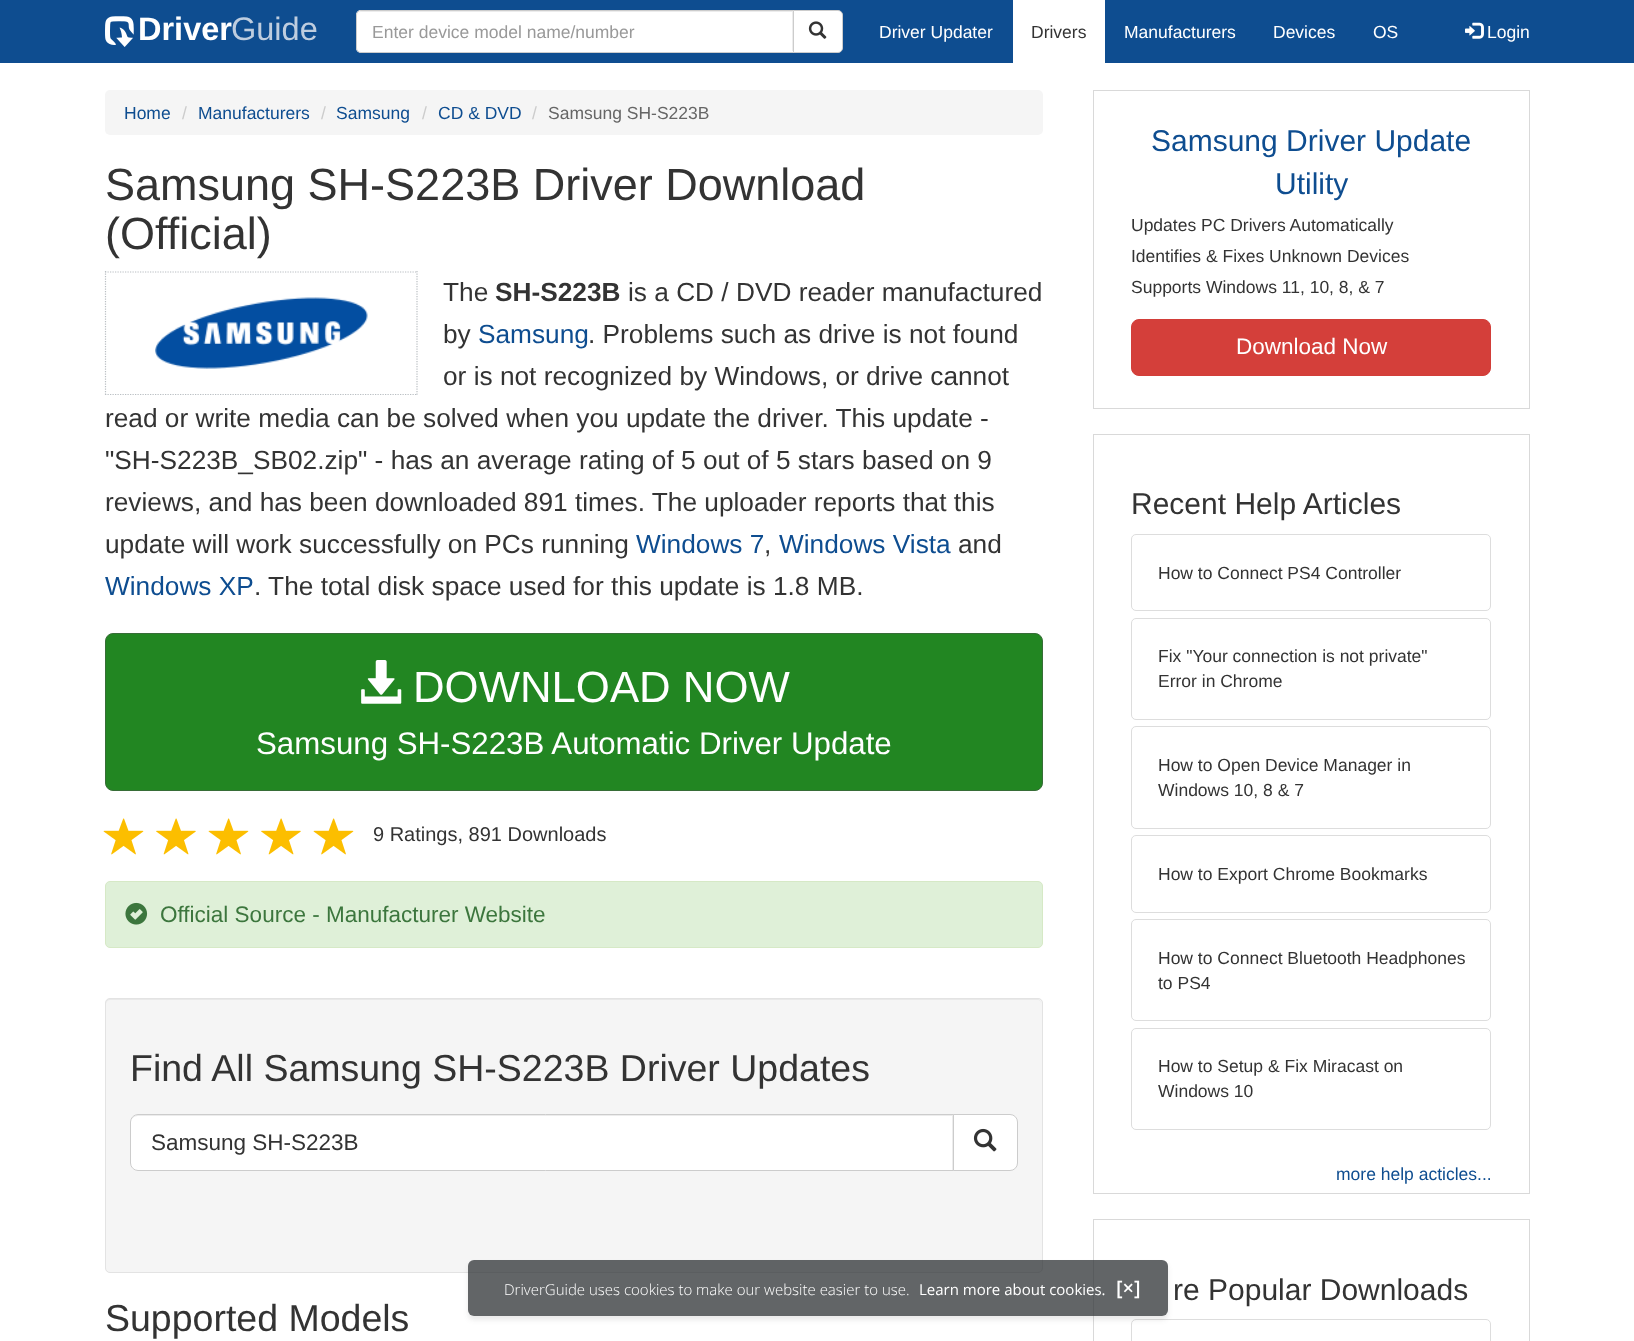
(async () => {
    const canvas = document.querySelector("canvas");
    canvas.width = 1634;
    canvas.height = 1341;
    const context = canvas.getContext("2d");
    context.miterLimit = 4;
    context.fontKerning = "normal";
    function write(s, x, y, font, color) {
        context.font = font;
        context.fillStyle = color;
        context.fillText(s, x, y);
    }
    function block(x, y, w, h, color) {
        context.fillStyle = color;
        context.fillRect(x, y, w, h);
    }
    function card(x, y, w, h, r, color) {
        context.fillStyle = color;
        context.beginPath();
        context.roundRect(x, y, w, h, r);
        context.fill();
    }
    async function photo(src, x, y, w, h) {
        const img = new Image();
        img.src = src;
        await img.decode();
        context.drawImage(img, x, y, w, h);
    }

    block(0, 0, 1634, 1341, "rgb(255, 255, 255)");
    block(0, 0, 1634, 63, "rgb(14, 77, 144)");
    await photo("media/1.png", 105, 16, 29, 31);
    write("Driver", 138, 40, "bold 32.5px Liberation Sans", "rgb(255, 255, 255)");
    write("Guide", 231, 40, "32.5px Liberation Sans", "rgb(190, 205, 223)");
    context.fillStyle = "rgb(255, 255, 255)";
    context.beginPath();
    context.roundRect(356, 10, 438, 43, [5, 0, 0, 5]);
    context.fill();
    context.fillStyle = "rgb(236, 236, 236)";
    context.beginPath();
    context.moveTo(361, 12);
    context.lineTo(792, 12);
    context.lineTo(792, 51);
    context.lineTo(793, 51);
    context.lineTo(793, 11);
    context.lineTo(362, 11);
    context.bezierCurveTo(360, 11, 358, 13, 358, 15);
    context.lineTo(358, 16);
    context.bezierCurveTo(358, 14, 359, 12, 361, 12);
    context.closePath();
    context.fill();
    context.beginPath();
    context.roundRect(356.5, 10.5, 437, 42, [4.5, 0, 0, 4.5]);
    context.strokeStyle = "rgb(204, 204, 204)";
    context.stroke();
    write("Enter device model name/number", 372, 38, "17.5px Liberation Sans", "rgb(153, 153, 153)");
    context.fillStyle = "rgb(255, 255, 255)";
    context.beginPath();
    context.roundRect(793.5, 10.5, 49, 42, [0, 4.5, 4.5, 0]);
    context.fill();
    context.stroke();
    await photo("media/2.png", 808, 21, 19, 18);
    write("Driver Updater", 879, 38, "17.5px Liberation Sans", "rgb(255, 255, 255)");
    block(1013, 0, 92, 63, "rgb(255, 255, 255)");
    write("Drivers", 1031, 38, "17.5px Liberation Sans", "rgb(51, 51, 51)");
    write("Manufacturers", 1124, 38, "17.5px Liberation Sans", "rgb(255, 255, 255)");
    write("Devices", 1273, 38, "17.5px Liberation Sans", "rgb(255, 255, 255)");
    write("OS", 1373, 38, "17.5px Liberation Sans", "rgb(255, 255, 255)");
    await photo("media/3.png", 1465, 22, 19, 17);
    write("Login", 1487, 38, "17.5px Liberation Sans", "rgb(255, 255, 255)");
    card(105, 90, 938, 45, 5, "rgb(245, 245, 245)");
    write("Home", 124, 119, "17.5px Liberation Sans", "rgb(14, 77, 144)");
    write("/", 182, 119, "17.5px Liberation Sans", "rgb(204, 204, 204)");
    write("Manufacturers", 198, 119, "17.5px Liberation Sans", "rgb(14, 77, 144)");
    write("/", 321, 119, "17.5px Liberation Sans", "rgb(204, 204, 204)");
    write("Samsung", 336, 119, "17.5px Liberation Sans", "rgb(14, 77, 144)");
    write("/", 422, 119, "17.5px Liberation Sans", "rgb(204, 204, 204)");
    write("CD & DVD", 438, 119, "17.5px Liberation Sans", "rgb(14, 77, 144)");
    write("/", 532, 119, "17.5px Liberation Sans", "rgb(204, 204, 204)");
    write("Samsung SH-S223B", 548, 119, "17.5px Liberation Sans", "rgb(102, 102, 102)");
    write("Samsung SH-S223B Driver Download", 105, 200, "45px Liberation Sans", "rgb(51, 51, 51)");
    write("(Official)", 105, 249, "45px Liberation Sans", "rgb(51, 51, 51)");
    context.beginPath();
    context.moveTo(105, 272);
    context.lineTo(417.5, 272);
    context.strokeStyle = "rgb(185, 190, 194)";
    context.lineWidth = 1.2;
    context.setLineDash([1.25, 1.25]);
    context.stroke();
    context.beginPath();
    context.moveTo(417, 271);
    context.lineTo(417, 395);
    context.stroke();
    context.beginPath();
    context.moveTo(105, 394.5);
    context.lineTo(417.5, 394.5);
    context.stroke();
    context.beginPath();
    context.moveTo(105.5, 271);
    context.lineTo(105.5, 395);
    context.stroke();
    await photo("media/4.png", 155, 297, 213, 72);
    write("The", 443, 301, "26.25px Liberation Sans", "rgb(51, 51, 51)");
    write("SH-S223B", 495, 301, "bold 26.25px Liberation Sans", "rgb(51, 51, 51)");
    write("is a CD / DVD reader manufactured", 628, 301, "26.25px Liberation Sans", "rgb(51, 51, 51)");
    write("by", 443, 343, "26.25px Liberation Sans", "rgb(51, 51, 51)");
    write("Samsung", 478, 343, "26.25px Liberation Sans", "rgb(14, 77, 144)");
    write(". Problems such as drive is not found", 588, 343, "26.25px Liberation Sans", "rgb(51, 51, 51)");
    write("or is not recognized by Windows, or drive cannot", 443, 385, "26.25px Liberation Sans", "rgb(51, 51, 51)");
    write("read or write media can be solved when you update the driver. This update -", 105, 427, "26.25px Liberation Sans", "rgb(51, 51, 51)");
    write("\"SH-S223B_SB02.zip\" - has an average rating of 5 out of 5 stars based on 9", 105, 469, "26.25px Liberation Sans", "rgb(51, 51, 51)");
    write("reviews, and has been downloaded 891 times. The uploader reports that this", 105, 511, "26.25px Liberation Sans", "rgb(51, 51, 51)");
    write("update will work successfully on PCs running", 105, 553, "26.25px Liberation Sans", "rgb(51, 51, 51)");
    write("Windows 7", 636, 553, "26.25px Liberation Sans", "rgb(14, 77, 144)");
    write(",", 764, 553, "26.25px Liberation Sans", "rgb(51, 51, 51)");
    write("Windows Vista", 779, 553, "26.25px Liberation Sans", "rgb(14, 77, 144)");
    write("and", 958, 553, "26.25px Liberation Sans", "rgb(51, 51, 51)");
    write("Windows XP", 105, 595, "26.25px Liberation Sans", "rgb(14, 77, 144)");
    write(". The total disk space used for this update is 1.8 MB.", 254, 595, "26.25px Liberation Sans", "rgb(51, 51, 51)");
    context.fillStyle = "rgb(34, 134, 34)";
    context.beginPath();
    context.roundRect(105.5, 633.5, 937, 157, 7.5);
    context.fill();
    context.strokeStyle = "rgb(55, 109, 55)";
    context.lineWidth = 1;
    context.setLineDash([]);
    context.stroke();
    await photo("media/5.png", 361, 660, 41, 44);
    write("DOWNLOAD NOW", 413, 702, "43.75px Liberation Sans", "rgb(255, 255, 255)");
    write("Samsung SH-S223B Automatic Driver Update", 256, 754, "31.25px Liberation Sans", "rgb(255, 255, 255)");
    await photo("media/6.png", 103, 818, 41, 37);
    await photo("media/7.png", 156, 818, 40, 37);
    await photo("media/6.png", 208, 818, 41, 37);
    await photo("media/7.png", 261, 818, 40, 37);
    await photo("media/6.png", 313, 818, 41, 37);
    write("9 Ratings, 891 Downloads", 373, 841, "20px Liberation Sans", "rgb(51, 51, 51)");
    context.fillStyle = "rgb(223, 240, 216)";
    context.beginPath();
    context.roundRect(105.5, 881.5, 937, 66, 4.5);
    context.fill();
    context.strokeStyle = "rgb(214, 233, 198)";
    context.stroke();
    await photo("media/8.png", 125, 902, 23, 23);
    write("Official Source - Manufacturer Website", 160, 922, "22.5px Liberation Sans", "rgb(60, 118, 61)");
    card(105, 998, 938, 275, 5, "rgb(245, 245, 245)");
    context.fillStyle = "rgb(233, 233, 233)";
    context.beginPath();
    context.moveTo(110, 1000);
    context.lineTo(1038, 1000);
    context.bezierCurveTo(1040, 1000, 1041, 1002, 1041, 1004);
    context.bezierCurveTo(1041, 1001, 1040, 999, 1037, 999);
    context.lineTo(110, 999);
    context.bezierCurveTo(107, 999, 106, 1001, 106, 1004);
    context.bezierCurveTo(106, 1002, 108, 1000, 110, 1000);
    context.closePath();
    context.fill();
    context.beginPath();
    context.roundRect(105.5, 998.5, 937, 274, 4.5);
    context.strokeStyle = "rgb(227, 227, 227)";
    context.stroke();
    write("Find All Samsung SH-S223B Driver Updates", 130, 1081, "37.5px Liberation Sans", "rgb(51, 51, 51)");
    context.fillStyle = "rgb(255, 255, 255)";
    context.beginPath();
    context.roundRect(130, 1114, 824, 57, [8, 0, 0, 8]);
    context.fill();
    context.fillStyle = "rgb(236, 236, 236)";
    context.beginPath();
    context.moveTo(138, 1116);
    context.lineTo(952, 1116);
    context.lineTo(952, 1170);
    context.lineTo(953, 1170);
    context.lineTo(953, 1115);
    context.lineTo(137, 1115);
    context.bezierCurveTo(133, 1115, 131, 1118, 131, 1122);
    context.bezierCurveTo(131, 1119, 134, 1116, 138, 1116);
    context.closePath();
    context.fill();
    context.beginPath();
    context.roundRect(130.5, 1114.5, 823, 56, [7.5, 0, 0, 7.5]);
    context.strokeStyle = "rgb(204, 204, 204)";
    context.stroke();
    write("Samsung SH-S223B", 151, 1150, "22.5px Liberation Sans", "rgb(51, 51, 51)");
    context.fillStyle = "rgb(255, 255, 255)";
    context.beginPath();
    context.roundRect(953.5, 1114.5, 64, 56, [0, 7.5, 7.5, 0]);
    context.fill();
    context.stroke();
    await photo("media/9.png", 973, 1128, 24, 24);
    write("Supported Models", 105, 1331, "37.5px Liberation Sans", "rgb(51, 51, 51)");
    context.strokeStyle = "rgb(217, 217, 217)";
    context.strokeRect(1093.5, 90.5, 436, 318);
    write("Samsung Driver Update", 1151, 151, "30px Liberation Sans", "rgb(14, 77, 144)");
    write("Utility", 1275, 194, "30px Liberation Sans", "rgb(14, 77, 144)");
    write("Updates PC Drivers Automatically", 1131, 231, "17.5px Liberation Sans", "rgb(51, 51, 51)");
    write("Identifies & Fixes Unknown Devices", 1131, 262, "17.5px Liberation Sans", "rgb(51, 51, 51)");
    write("Supports Windows 11, 10, 8, & 7", 1131, 293, "17.5px Liberation Sans", "rgb(51, 51, 51)");
    context.fillStyle = "rgb(212, 63, 58)";
    context.beginPath();
    context.roundRect(1131.5, 319.5, 359, 56, 7.5);
    context.fill();
    context.strokeStyle = "rgb(210, 62, 57)";
    context.stroke();
    write("Download Now", 1236, 354, "22.5px Liberation Sans", "rgb(255, 255, 255)");
    context.strokeStyle = "rgb(217, 217, 217)";
    context.strokeRect(1093.5, 434.5, 436, 759);
    write("Recent Help Articles", 1131, 514, "30px Liberation Sans", "rgb(51, 51, 51)");
    context.beginPath();
    context.roundRect(1131.5, 534.5, 359, 76, 4.5);
    context.strokeStyle = "rgb(221, 221, 221)";
    context.stroke();
    write("How to Connect PS4 Controller", 1158, 579, "17.5px Liberation Sans", "rgb(51, 51, 51)");
    context.beginPath();
    context.roundRect(1131.5, 618.5, 359, 101, 4.5);
    context.stroke();
    write("Fix \"Your connection is not private\"", 1158, 662, "17.5px Liberation Sans", "rgb(51, 51, 51)");
    write("Error in Chrome", 1158, 687, "17.5px Liberation Sans", "rgb(51, 51, 51)");
    context.beginPath();
    context.roundRect(1131.5, 726.5, 359, 102, 4.5);
    context.stroke();
    write("How to Open Device Manager in", 1158, 771, "17.5px Liberation Sans", "rgb(51, 51, 51)");
    write("Windows 10, 8 & 7", 1158, 796, "17.5px Liberation Sans", "rgb(51, 51, 51)");
    context.beginPath();
    context.roundRect(1131.5, 835.5, 359, 77, 4.5);
    context.stroke();
    write("How to Export Chrome Bookmarks", 1158, 880, "17.5px Liberation Sans", "rgb(51, 51, 51)");
    context.beginPath();
    context.roundRect(1131.5, 919.5, 359, 101, 4.5);
    context.stroke();
    write("How to Connect Bluetooth Headphones", 1158, 964, "17.5px Liberation Sans", "rgb(51, 51, 51)");
    write("to PS4", 1158, 989, "17.5px Liberation Sans", "rgb(51, 51, 51)");
    context.beginPath();
    context.roundRect(1131.5, 1028.5, 359, 101, 4.5);
    context.stroke();
    write("How to Setup & Fix Miracast on", 1158, 1072, "17.5px Liberation Sans", "rgb(51, 51, 51)");
    write("Windows 10", 1158, 1097, "17.5px Liberation Sans", "rgb(51, 51, 51)");
    write("more help acticles...", 1336, 1180, "17.5px Liberation Sans", "rgb(14, 77, 144)");
    context.strokeStyle = "rgb(217, 217, 217)";
    context.strokeRect(1093.5, 1219.5, 436, 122);
    write("re Popular Downloads", 1173, 1300, "30px Liberation Sans", "rgb(51, 51, 51)");
    context.beginPath();
    context.roundRect(1131.5, 1319.5, 359, 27, 4.5);
    context.strokeStyle = "rgb(221, 221, 221)";
    context.stroke();
    context.save();
    context.beginPath();
    context.moveTo(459, 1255);
    context.lineTo(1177, 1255);
    context.lineTo(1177, 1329);
    context.lineTo(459, 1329);
    context.closePath();
    context.moveTo(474, 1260);
    context.lineTo(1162, 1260);
    context.bezierCurveTo(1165.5, 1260, 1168, 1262.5, 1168, 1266);
    context.lineTo(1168, 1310);
    context.bezierCurveTo(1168, 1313.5, 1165.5, 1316, 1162, 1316);
    context.lineTo(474, 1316);
    context.bezierCurveTo(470.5, 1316, 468, 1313.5, 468, 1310);
    context.lineTo(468, 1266);
    context.bezierCurveTo(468, 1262.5, 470.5, 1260, 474, 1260);
    context.closePath();
    context.clip("evenodd");
    context.fillStyle = "rgba(46, 50, 52, 0.1)";
    context.filter = "blur(2.5px)";
    context.beginPath();
    context.roundRect(468, 1264, 700, 56, 6);
    context.fill();
    context.filter = "none";
    context.restore();
    card(468, 1260, 700, 56, 6, "rgba(46, 50, 52, 0.75)");
    write("DriverGuide uses cookies to make our website easier to use.", 504, 1295, "300 15px Open Sans", "rgb(255, 255, 255)");
    write("Learn more about cookies.", 919, 1295, "15px Open Sans", "rgb(255, 255, 255)");
    write("[×]", 1116, 1295, "600 20px Open Sans", "rgb(255, 255, 255)");
})();
